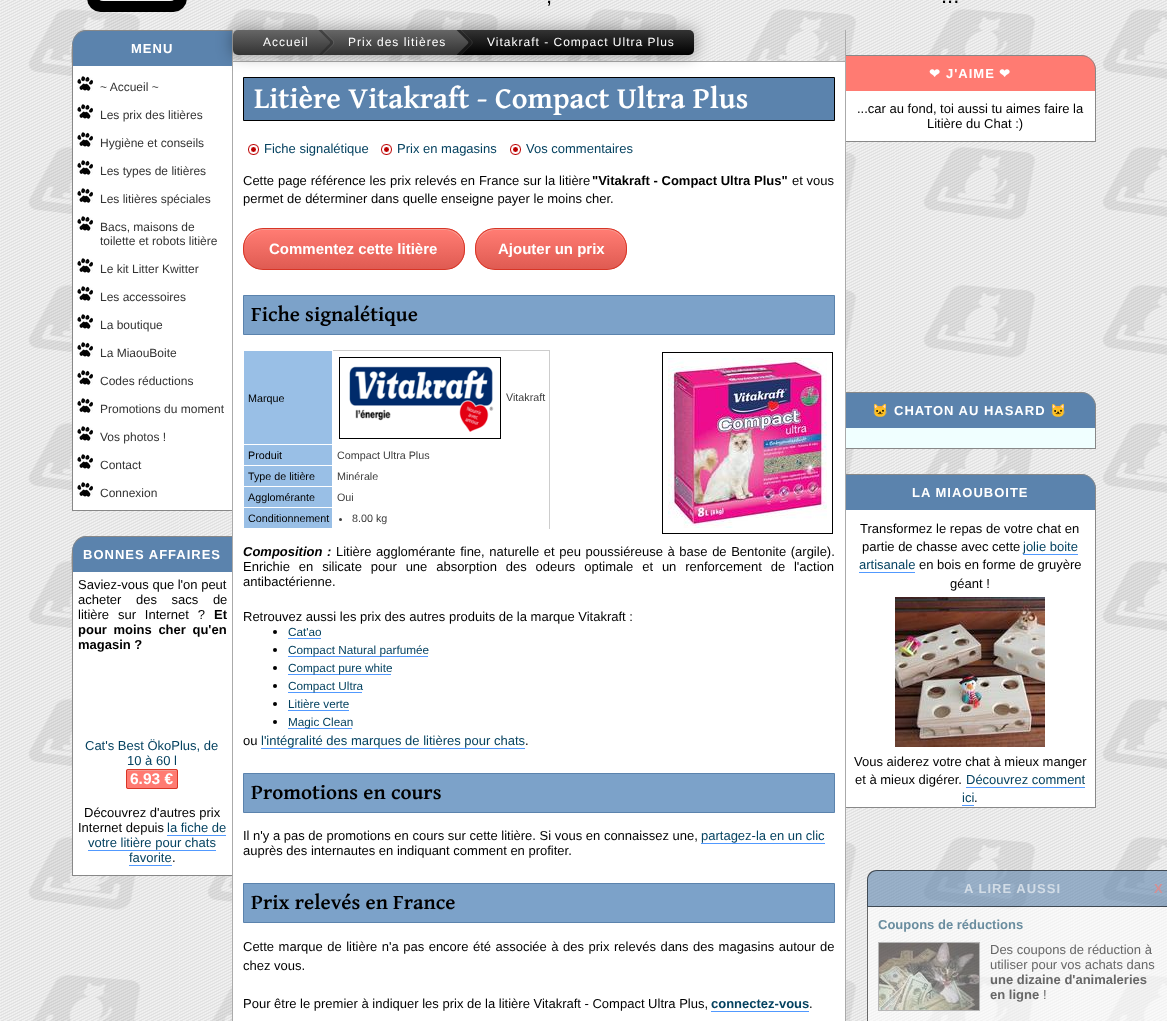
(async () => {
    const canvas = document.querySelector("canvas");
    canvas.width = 1167;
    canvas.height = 1021;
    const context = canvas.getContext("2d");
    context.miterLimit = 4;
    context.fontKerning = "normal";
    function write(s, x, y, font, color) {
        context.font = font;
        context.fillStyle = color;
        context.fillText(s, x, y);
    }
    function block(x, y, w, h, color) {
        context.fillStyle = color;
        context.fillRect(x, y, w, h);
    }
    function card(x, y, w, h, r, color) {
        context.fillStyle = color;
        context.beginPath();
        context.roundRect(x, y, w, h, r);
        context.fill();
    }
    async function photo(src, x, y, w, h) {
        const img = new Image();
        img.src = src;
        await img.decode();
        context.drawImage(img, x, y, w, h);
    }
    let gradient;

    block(0, 0, 1167, 1021, "rgb(255, 255, 255)");
    await photo("media/1.png", 0, 0, 1167, 1021);
    await photo("media/2.png", 87, 0, 100, 12);
    write(",", 546, 3, "22px Liberation Sans", "rgb(0, 0, 0)");
    write("...", 941, 3, "22px Liberation Sans", "rgb(0, 0, 0)");
    context.fillStyle = "rgb(91, 131, 173)";
    context.beginPath();
    context.roundRect(72, 30, 160, 36, [15, 0, 0, 0]);
    context.fill();
    context.fillStyle = "rgb(136, 136, 136)";
    context.beginPath();
    context.moveTo(87, 30);
    context.lineTo(232, 30);
    context.lineTo(232, 66);
    context.lineTo(72, 66);
    context.bezierCurveTo(72, 54, 68, 30, 87, 30);
    context.closePath();
    context.moveTo(87, 31);
    context.lineTo(232, 31);
    context.lineTo(232, 66);
    context.lineTo(73, 66);
    context.lineTo(73, 45);
    context.bezierCurveTo(73, 37, 79, 31, 87, 31);
    context.closePath();
    context.fill("evenodd");
    context.letterSpacing = "1px";
    write("MENU", 131, 53, "bold 13px Liberation Sans", "rgb(255, 255, 255)");
    block(73, 66, 159, 444, "rgb(255, 255, 255)");
    block(72, 510, 160, 1, "rgb(136, 136, 136)");
    block(72, 66, 1, 445, "rgb(136, 136, 136)");
    await photo("media/3.png", 77, 76, 16, 15);
    context.letterSpacing = "0px";
    write("~ Accueil ~", 100, 91, "12px Liberation Sans", "rgb(51, 51, 51)");
    await photo("media/3.png", 77, 104, 16, 15);
    write("Les prix des litières", 100, 119, "12px Liberation Sans", "rgb(51, 51, 51)");
    await photo("media/3.png", 77, 132, 16, 15);
    write("Hygiène et conseils", 100, 147, "12px Liberation Sans", "rgb(51, 51, 51)");
    await photo("media/3.png", 77, 160, 16, 15);
    write("Les types de litières", 100, 175, "12px Liberation Sans", "rgb(51, 51, 51)");
    await photo("media/3.png", 77, 188, 16, 15);
    write("Les litières spéciales", 100, 203, "12px Liberation Sans", "rgb(51, 51, 51)");
    await photo("media/3.png", 77, 216, 16, 15);
    write("Bacs, maisons de", 100, 231, "12px Liberation Sans", "rgb(51, 51, 51)");
    write("toilette et robots litière", 100, 245, "12px Liberation Sans", "rgb(51, 51, 51)");
    await photo("media/3.png", 77, 258, 16, 15);
    write("Le kit Litter Kwitter", 100, 273, "12px Liberation Sans", "rgb(51, 51, 51)");
    await photo("media/3.png", 77, 286, 16, 15);
    write("Les accessoires", 100, 301, "12px Liberation Sans", "rgb(51, 51, 51)");
    await photo("media/3.png", 77, 314, 16, 15);
    write("La boutique", 100, 329, "12px Liberation Sans", "rgb(51, 51, 51)");
    await photo("media/3.png", 77, 342, 16, 15);
    write("La MiaouBoite", 100, 357, "12px Liberation Sans", "rgb(51, 51, 51)");
    await photo("media/3.png", 77, 370, 16, 15);
    write("Codes réductions", 100, 385, "12px Liberation Sans", "rgb(51, 51, 51)");
    await photo("media/3.png", 77, 398, 16, 15);
    write("Promotions du moment", 100, 413, "12px Liberation Sans", "rgb(51, 51, 51)");
    await photo("media/3.png", 77, 426, 16, 15);
    write("Vos photos !", 100, 441, "12px Liberation Sans", "rgb(51, 51, 51)");
    await photo("media/3.png", 77, 454, 16, 15);
    write("Contact", 100, 469, "12px Liberation Sans", "rgb(51, 51, 51)");
    await photo("media/3.png", 77, 482, 16, 15);
    write("Connexion", 100, 497, "12px Liberation Sans", "rgb(51, 51, 51)");
    context.fillStyle = "rgb(91, 131, 173)";
    context.beginPath();
    context.roundRect(72, 536, 160, 36, [15, 0, 0, 0]);
    context.fill();
    context.fillStyle = "rgb(136, 136, 136)";
    context.beginPath();
    context.moveTo(87, 536);
    context.lineTo(232, 536);
    context.lineTo(232, 572);
    context.lineTo(72, 572);
    context.bezierCurveTo(72, 560, 68, 536, 87, 536);
    context.closePath();
    context.moveTo(87, 537);
    context.lineTo(232, 537);
    context.lineTo(232, 572);
    context.lineTo(73, 572);
    context.lineTo(73, 551);
    context.bezierCurveTo(73, 543, 79, 537, 87, 537);
    context.closePath();
    context.fill("evenodd");
    context.letterSpacing = "1px";
    write("BONNES AFFAIRES", 83, 559, "bold 13px Liberation Sans", "rgb(255, 255, 255)");
    block(73, 572, 159, 303, "rgb(255, 255, 255)");
    block(72, 875, 160, 1, "rgb(136, 136, 136)");
    block(72, 572, 1, 304, "rgb(136, 136, 136)");
    context.letterSpacing = "0px";
    write("Saviez-vous que l'on peut", 78, 589, "13px Liberation Sans", "rgb(0, 0, 0)");
    context.wordSpacing = "11px";
    write("acheter des sacs de", 78, 604, "13px Liberation Sans", "rgb(0, 0, 0)");
    context.wordSpacing = "5.25px";
    write("litière sur Internet ?", 78, 619, "13px Liberation Sans", "rgb(0, 0, 0)");
    context.wordSpacing = "0px";
    write("Et", 214, 619, "bold 13px Liberation Sans", "rgb(0, 0, 0)");
    context.wordSpacing = "3px";
    write("pour moins cher qu'en", 78, 634, "bold 13px Liberation Sans", "rgb(0, 0, 0)");
    context.wordSpacing = "0px";
    write("magasin ?", 78, 649, "bold 13px Liberation Sans", "rgb(0, 0, 0)");
    write("Cat's Best ÖkoPlus, de", 85, 750, "13px Liberation Sans", "rgb(5, 66, 96)");
    write("10 à 60 l", 127, 765, "13px Liberation Sans", "rgb(5, 66, 96)");
    card(126, 769, 52, 20, 2, "rgb(255, 123, 114)");
    context.fillStyle = "rgb(242, 156, 147)";
    context.beginPath();
    context.moveTo(128, 771);
    context.lineTo(176, 771);
    context.bezierCurveTo(177, 771, 177, 771, 177, 772);
    context.bezierCurveTo(177, 768, 172, 770, 168, 770);
    context.lineTo(136, 770);
    context.bezierCurveTo(132, 770, 127, 768, 127, 772);
    context.bezierCurveTo(127, 771, 127, 771, 128, 771);
    context.closePath();
    context.fill();
    context.beginPath();
    context.roundRect(126.5, 769.5, 51, 19, 1.5);
    context.strokeStyle = "rgb(216, 53, 38)";
    context.stroke();
    write("6.93 €", 130, 784, "bold 15.5px Liberation Sans", "rgb(255, 255, 255)");
    write("Découvrez d'autres prix", 84, 817, "13px Liberation Sans", "rgb(0, 0, 0)");
    write("Internet depuis", 78, 832, "13px Liberation Sans", "rgb(0, 0, 0)");
    write("la fiche de", 167, 832, "13px Liberation Sans", "rgb(5, 66, 96)");
    block(167, 835, 59, 1, "rgb(81, 153, 255)");
    write("votre litière pour chats", 88, 847, "13px Liberation Sans", "rgb(5, 66, 96)");
    block(88, 850, 128, 1, "rgb(81, 153, 255)");
    write("favorite", 129, 862, "13px Liberation Sans", "rgb(5, 66, 96)");
    block(129, 865, 43, 1, "rgb(81, 153, 255)");
    write(".", 172, 862, "13px Liberation Sans", "rgb(0, 0, 0)");
    block(845, 30, 1, 991, "rgb(170, 170, 170)");
    block(232, 30, 1, 991, "rgb(170, 170, 170)");
    block(233, 62, 612, 959, "rgb(255, 255, 255)");
    block(233, 61, 612, 1, "rgb(170, 170, 170)");
    context.fillStyle = "rgb(91, 131, 173)";
    context.beginPath();
    context.rect(243.5, 77.5, 591, 43);
    context.fill();
    context.strokeStyle = "rgb(0, 0, 0)";
    context.stroke();
    context.fillStyle = "rgba(0, 0, 0, 0.35)";
    context.filter = "blur(7.5px)";
    context.beginPath();
    context.roundRect(232, 29, 463, 27, 6);
    context.fill();
    context.filter = "none";
    gradient = context.createLinearGradient(276, 30, 276, 55);
    gradient.addColorStop(0, "rgb(102, 102, 102)");
    gradient.addColorStop(1, "rgb(51, 51, 51)");
    context.fillStyle = gradient;
    context.beginPath();
    context.roundRect(233, 30, 85, 25, [5, 0, 0, 5]);
    context.fill();
    context.letterSpacing = "1px";
    write("Accueil", 263, 46, "12px Liberation Sans", "rgb(255, 255, 255)");
    gradient = context.createLinearGradient(388, 30, 388, 55);
    gradient.addColorStop(0, "rgb(102, 102, 102)");
    gradient.addColorStop(1, "rgb(51, 51, 51)");
    context.fillStyle = gradient;
    context.fillRect(318, 30, 139, 25);
    context.fillStyle = "rgba(255, 255, 255, 0.1)";
    context.beginPath();
    context.moveTo(319.5, 55);
    context.lineTo(323, 55);
    context.lineTo(333.5, 44.5);
    context.bezierCurveTo(334.5, 43.5, 334.5, 41.5, 333.5, 40.5);
    context.lineTo(323, 30);
    context.lineTo(319, 30);
    context.lineTo(318.5, 30.5);
    context.lineTo(329.5, 41.5);
    context.bezierCurveTo(330, 42, 330, 43, 329.5, 43.5);
    context.lineTo(319, 54.5);
    context.closePath();
    context.fill();
    context.fillStyle = "rgba(0, 0, 0, 0.4)";
    context.beginPath();
    context.moveTo(318.5, 55);
    context.lineTo(322, 55);
    context.lineTo(332.5, 44.5);
    context.bezierCurveTo(333.5, 43.5, 333.5, 41.5, 332.5, 40.5);
    context.lineTo(322, 30);
    context.lineTo(318, 30);
    context.lineTo(317.5, 30.5);
    context.lineTo(318, 30);
    context.lineTo(329.5, 41.5);
    context.bezierCurveTo(330, 42, 330, 43, 329.5, 43.5);
    context.closePath();
    context.fill();
    await photo("media/4.png", 318, 30, 12, 15);
    write("Prix des litières", 348, 46, "12px Liberation Sans", "rgb(255, 255, 255)");
    gradient = context.createLinearGradient(576, 30, 576, 55);
    gradient.addColorStop(0, "rgb(51, 51, 51)");
    gradient.addColorStop(1, "rgb(0, 0, 0)");
    context.fillStyle = gradient;
    context.beginPath();
    context.roundRect(457, 30, 237, 25, [0, 5, 5, 0]);
    context.fill();
    context.fillStyle = "rgba(255, 255, 255, 0.1)";
    context.beginPath();
    context.moveTo(457.5, 55);
    context.lineTo(461.5, 55);
    context.lineTo(472, 44.5);
    context.bezierCurveTo(473, 43.5, 473, 41.5, 472, 40.5);
    context.lineTo(461.5, 30);
    context.lineTo(457.5, 30);
    context.lineTo(457, 30.5);
    context.lineTo(468, 41.5);
    context.bezierCurveTo(468.5, 42, 468.5, 43, 468, 43.5);
    context.lineTo(457, 54.5);
    context.closePath();
    context.fill();
    context.fillStyle = "rgba(0, 0, 0, 0.4)";
    context.beginPath();
    context.moveTo(456.5, 55);
    context.lineTo(460.5, 55);
    context.lineTo(471, 44.5);
    context.bezierCurveTo(472, 43.5, 472, 41.5, 471, 40.5);
    context.lineTo(460.5, 30);
    context.lineTo(456.5, 30);
    context.lineTo(468, 41.5);
    context.bezierCurveTo(468.5, 42, 468.5, 43, 468, 43.5);
    context.closePath();
    context.fill();
    await photo("media/5.png", 457, 30, 12, 25);
    write("Vitakraft - Compact Ultra Plus", 487, 46, "12px Liberation Sans", "rgb(255, 255, 255)");
    context.letterSpacing = "0px";
    write("Litière Vitakraft - Compact Ultra Plus", 254, 108, "bold 30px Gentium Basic", "rgb(255, 255, 255)");
    await photo("media/6.png", 248, 144, 11, 11);
    write("Fiche signalétique", 264, 153, "13px Liberation Sans", "rgb(5, 66, 96)");
    await photo("media/6.png", 381, 144, 11, 11);
    write("Prix en magasins", 397, 153, "13px Liberation Sans", "rgb(5, 66, 96)");
    await photo("media/6.png", 510, 144, 11, 11);
    write("Vos commentaires", 526, 153, "13px Liberation Sans", "rgb(5, 66, 96)");
    context.wordSpacing = "0.25px";
    write("Cette page référence les prix relevés en France sur la litière", 243, 185, "13px Liberation Sans", "rgb(0, 0, 0)");
    context.wordSpacing = "0px";
    write("\"Vitakraft - Compact Ultra Plus\"", 592, 185, "bold 13px Liberation Sans", "rgb(0, 0, 0)");
    write("et vous", 792, 185, "13px Liberation Sans", "rgb(0, 0, 0)");
    write("permet de déterminer dans quelle enseigne payer le moins cher.", 243, 203, "13px Liberation Sans", "rgb(0, 0, 0)");
    context.save();
    context.beginPath();
    context.roundRect(243, 228, 222, 42, 20);
    context.clip();
    gradient = context.createLinearGradient(244, 229, 244, 269);
    gradient.addColorStop(0.05, "rgb(255, 123, 114)");
    gradient.addColorStop(1, "rgb(223, 91, 82)");
    context.fillStyle = gradient;
    context.fillRect(243, 229, 222, 40);
    context.restore();
    context.fillStyle = "rgb(242, 156, 147)";
    context.beginPath();
    context.moveTo(263, 230);
    context.lineTo(445, 230);
    context.bezierCurveTo(455, 230, 464, 239, 464, 249);
    context.bezierCurveTo(464, 222, 431, 229, 415, 229);
    context.lineTo(293, 229);
    context.bezierCurveTo(277, 229, 244, 222, 244, 249);
    context.bezierCurveTo(244, 239, 253, 230, 263, 230);
    context.closePath();
    context.fill();
    context.beginPath();
    context.roundRect(243.5, 228.5, 221, 41, 19.5);
    context.strokeStyle = "rgb(216, 53, 38)";
    context.stroke();
    write("Commentez cette litière", 269, 254, "bold 15px Liberation Sans", "rgb(255, 255, 255)");
    context.save();
    context.beginPath();
    context.roundRect(475, 228, 152, 42, 20);
    context.clip();
    gradient = context.createLinearGradient(476, 229, 476, 269);
    gradient.addColorStop(0.05, "rgb(255, 123, 114)");
    gradient.addColorStop(1, "rgb(223, 91, 82)");
    context.fillStyle = gradient;
    context.fillRect(475, 229, 152, 40);
    context.restore();
    context.fillStyle = "rgb(242, 156, 147)";
    context.beginPath();
    context.moveTo(495, 230);
    context.lineTo(607, 230);
    context.bezierCurveTo(617, 230, 626, 239, 626, 249);
    context.lineTo(626, 248);
    context.bezierCurveTo(626, 238, 617, 229, 607, 229);
    context.lineTo(495, 229);
    context.bezierCurveTo(485, 229, 476, 238, 476, 248);
    context.lineTo(476, 249);
    context.bezierCurveTo(476, 239, 485, 230, 495, 230);
    context.closePath();
    context.fill();
    context.beginPath();
    context.roundRect(475.5, 228.5, 151, 41, 19.5);
    context.stroke();
    write("Ajouter un prix", 498, 254, "bold 15px Liberation Sans", "rgb(255, 255, 255)");
    context.fillStyle = "rgb(124, 162, 201)";
    context.beginPath();
    context.rect(243.5, 295.5, 591, 39);
    context.fill();
    context.strokeStyle = "rgb(91, 131, 173)";
    context.stroke();
    write("Fiche signalétique", 251, 321, "bold 21px Gentium Basic", "rgb(0, 0, 0)");
    block(333, 350, 217, 179, "rgb(205, 205, 205)");
    block(244, 351, 88, 93, "rgb(153, 191, 230)");
    write("Marque", 248, 402, "10.75px Liberation Sans", "rgb(0, 0, 0)");
    block(333, 351, 216, 178, "rgb(255, 255, 255)");
    context.strokeStyle = "rgb(0, 0, 0)";
    context.strokeRect(339.5, 357.5, 161, 81);
    await photo("media/7.png", 349, 366, 145, 66);
    write("Vitakraft", 506, 401, "10.75px Liberation Sans", "rgb(61, 61, 61)");
    block(244, 445, 88, 20, "rgb(153, 191, 230)");
    write("Produit", 248, 459, "10.75px Liberation Sans", "rgb(0, 0, 0)");
    write("Compact Ultra Plus", 337, 459, "10.75px Liberation Sans", "rgb(61, 61, 61)");
    block(244, 466, 88, 20, "rgb(153, 191, 230)");
    write("Type de litière", 248, 480, "10.75px Liberation Sans", "rgb(0, 0, 0)");
    write("Minérale", 337, 480, "10.75px Liberation Sans", "rgb(61, 61, 61)");
    block(244, 487, 88, 20, "rgb(153, 191, 230)");
    write("Agglomérante", 248, 501, "10.75px Liberation Sans", "rgb(0, 0, 0)");
    write("Oui", 337, 501, "10.75px Liberation Sans", "rgb(61, 61, 61)");
    block(244, 508, 88, 20, "rgb(153, 191, 230)");
    write("Conditionnement", 248, 522, "10.75px Liberation Sans", "rgb(0, 0, 0)");
    context.fillStyle = "rgb(61, 61, 61)";
    context.beginPath();
    context.arc(340.5, 519.5, 1.5, 0, Math.PI * 2);
    context.fill();
    write("8.00 kg", 352, 522, "10.75px Liberation Sans", "rgb(61, 61, 61)");
    context.strokeRect(662.5, 352.5, 170, 181);
    await photo("media/8.png", 668, 358, 159, 170);
    context.wordSpacing = "1px";
    write("Composition :", 243, 556, "italic bold 13px Liberation Sans", "rgb(0, 0, 0)");
    write("Litière agglomérante fine, naturelle et peu poussiéreuse à base de Bentonite (argile).", 336, 556, "13px Liberation Sans", "rgb(0, 0, 0)");
    context.wordSpacing = "5.25px";
    write("Enrichie en silicate pour une absorption des odeurs optimale et un renforcement de l'action", 243, 571, "13px Liberation Sans", "rgb(0, 0, 0)");
    context.wordSpacing = "0px";
    write("antibactérienne.", 243, 586, "13px Liberation Sans", "rgb(0, 0, 0)");
    write("Retrouvez aussi les prix des autres produits de la marque Vitakraft :", 243, 621, "13px Liberation Sans", "rgb(0, 0, 0)");
    context.beginPath();
    context.arc(275, 632, 2, 0, Math.PI * 2);
    context.fill();
    write("Cat'ao", 288, 636, "11.75px Liberation Sans", "rgb(5, 66, 96)");
    block(288, 638, 33, 1, "rgb(81, 153, 255)");
    context.fillStyle = "rgb(0, 0, 0)";
    context.beginPath();
    context.arc(275, 650, 2, 0, Math.PI * 2);
    context.fill();
    block(288, 656, 140, 1, "rgb(81, 153, 255)");
    write("Compact Natural parfumée", 288, 654, "11.75px Liberation Sans", "rgb(5, 66, 96)");
    context.fillStyle = "rgb(0, 0, 0)";
    context.beginPath();
    context.arc(275, 668, 2, 0, Math.PI * 2);
    context.fill();
    block(288, 674, 103, 1, "rgb(81, 153, 255)");
    write("Compact pure white", 288, 672, "11.75px Liberation Sans", "rgb(5, 66, 96)");
    context.fillStyle = "rgb(0, 0, 0)";
    context.beginPath();
    context.arc(275, 686, 2, 0, Math.PI * 2);
    context.fill();
    block(288, 692, 74, 1, "rgb(81, 153, 255)");
    write("Compact Ultra", 288, 690, "11.75px Liberation Sans", "rgb(5, 66, 96)");
    context.fillStyle = "rgb(0, 0, 0)";
    context.beginPath();
    context.arc(275, 704, 2, 0, Math.PI * 2);
    context.fill();
    write("Litière verte", 288, 708, "11.75px Liberation Sans", "rgb(5, 66, 96)");
    block(288, 710, 61, 1, "rgb(81, 153, 255)");
    context.fillStyle = "rgb(0, 0, 0)";
    context.beginPath();
    context.arc(275, 722, 2, 0, Math.PI * 2);
    context.fill();
    block(288, 728, 64, 1, "rgb(81, 153, 255)");
    write("Magic Clean", 288, 726, "11.75px Liberation Sans", "rgb(5, 66, 96)");
    write("ou", 243, 745, "13px Liberation Sans", "rgb(0, 0, 0)");
    write("l'intégralité des marques de litières pour chats", 261, 745, "13px Liberation Sans", "rgb(5, 66, 96)");
    block(261, 748, 264, 1, "rgb(81, 153, 255)");
    write(".", 525, 745, "13px Liberation Sans", "rgb(0, 0, 0)");
    context.fillStyle = "rgb(124, 162, 201)";
    context.beginPath();
    context.rect(243.5, 773.5, 591, 39);
    context.fill();
    context.strokeStyle = "rgb(91, 131, 173)";
    context.stroke();
    write("Promotions en cours", 251, 799, "bold 21px Gentium Basic", "rgb(0, 0, 0)");
    write("Il n'y a pas de promotions en cours sur cette litière. Si vous en connaissez une,", 243, 840, "13px Liberation Sans", "rgb(0, 0, 0)");
    write("partagez-la en un clic", 701, 840, "13px Liberation Sans", "rgb(5, 66, 96)");
    block(701, 843, 124, 1, "rgb(81, 153, 255)");
    write("auprès des internautes en indiquant comment en profiter.", 243, 855, "13px Liberation Sans", "rgb(0, 0, 0)");
    context.fillStyle = "rgb(124, 162, 201)";
    context.beginPath();
    context.rect(243.5, 883.5, 591, 39);
    context.fill();
    context.stroke();
    write("Prix relevés en France", 251, 909, "bold 21px Gentium Basic", "rgb(0, 0, 0)");
    context.wordSpacing = "0.9px";
    write("Cette marque de litière n'a pas encore été associée à des prix relevés dans des magasins autour de", 243, 951, "13px Liberation Sans", "rgb(0, 0, 0)");
    context.wordSpacing = "0px";
    write("chez vous.", 243, 970, "13px Liberation Sans", "rgb(0, 0, 0)");
    write("Pour être le premier à indiquer les prix de la litière Vitakraft - Compact Ultra Plus,", 243, 1008, "13px Liberation Sans", "rgb(0, 0, 0)");
    write("connectez-vous", 711, 1008, "bold 13px Liberation Sans", "rgb(5, 66, 96)");
    block(711, 1011, 98, 1, "rgb(81, 153, 255)");
    write(".", 809, 1008, "13px Liberation Sans", "rgb(0, 0, 0)");
    context.fillStyle = "rgb(255, 123, 114)";
    context.beginPath();
    context.roundRect(846, 55, 250, 36, [0, 15, 0, 0]);
    context.fill();
    context.fillStyle = "rgb(136, 136, 136)";
    context.beginPath();
    context.moveTo(846, 55);
    context.lineTo(1081, 55);
    context.bezierCurveTo(1089, 55, 1096, 62, 1096, 70);
    context.lineTo(1096, 91);
    context.lineTo(846, 91);
    context.closePath();
    context.moveTo(846, 56);
    context.lineTo(1081, 56);
    context.bezierCurveTo(1089, 56, 1095, 62, 1095, 70);
    context.lineTo(1095, 91);
    context.lineTo(846, 91);
    context.closePath();
    context.fill("evenodd");
    context.letterSpacing = "1px";
    write("❤", 929, 78, "bold 13px DejaVu Sans", "rgb(255, 255, 255)");
    write("J'AIME", 946, 78, "bold 13px Liberation Sans", "rgb(255, 255, 255)");
    write("❤", 999, 78, "bold 13px DejaVu Sans", "rgb(255, 255, 255)");
    block(846, 91, 249, 50, "rgb(255, 255, 255)");
    block(1095, 91, 1, 51, "rgb(136, 136, 136)");
    block(846, 141, 250, 1, "rgb(136, 136, 136)");
    context.letterSpacing = "0px";
    write("...car au fond, toi aussi tu aimes faire la", 857, 113, "13px Liberation Sans", "rgb(0, 0, 0)");
    write("Litière du Chat :)", 927, 128, "13px Liberation Sans", "rgb(0, 0, 0)");
    context.fillStyle = "rgb(91, 131, 173)";
    context.beginPath();
    context.roundRect(846, 392, 250, 36, [0, 15, 0, 0]);
    context.fill();
    context.fillStyle = "rgb(136, 136, 136)";
    context.beginPath();
    context.moveTo(846, 392);
    context.lineTo(1081, 392);
    context.bezierCurveTo(1089, 392, 1096, 399, 1096, 407);
    context.lineTo(1096, 428);
    context.lineTo(846, 428);
    context.closePath();
    context.moveTo(846, 393);
    context.lineTo(1081, 393);
    context.bezierCurveTo(1089, 393, 1095, 399, 1095, 407);
    context.lineTo(1095, 428);
    context.lineTo(846, 428);
    context.closePath();
    context.fill("evenodd");
    context.letterSpacing = "1px";
    write("🐱", 872, 415, "bold 13px Noto Color Emoji", "rgb(255, 255, 255)");
    write("CHATON AU HASARD", 894, 415, "bold 13px Liberation Sans", "rgb(255, 255, 255)");
    write("🐱", 1050, 415, "bold 13px Noto Color Emoji", "rgb(255, 255, 255)");
    block(846, 428, 249, 20, "rgb(240, 255, 255)");
    block(1095, 428, 1, 21, "rgb(136, 136, 136)");
    block(846, 448, 250, 1, "rgb(136, 136, 136)");
    context.fillStyle = "rgb(91, 131, 173)";
    context.beginPath();
    context.roundRect(846, 474, 250, 36, [0, 15, 0, 0]);
    context.fill();
    context.fillStyle = "rgb(136, 136, 136)";
    context.beginPath();
    context.moveTo(846, 474);
    context.lineTo(1081, 474);
    context.bezierCurveTo(1089, 474, 1096, 481, 1096, 489);
    context.lineTo(1096, 510);
    context.lineTo(846, 510);
    context.closePath();
    context.moveTo(846, 475);
    context.lineTo(1081, 475);
    context.bezierCurveTo(1089, 475, 1095, 481, 1095, 489);
    context.lineTo(1095, 510);
    context.lineTo(846, 510);
    context.closePath();
    context.fill("evenodd");
    write("LA MIAOUBOITE", 912, 497, "bold 13px Liberation Sans", "rgb(255, 255, 255)");
    block(846, 510, 249, 297, "rgb(255, 255, 255)");
    block(1095, 510, 1, 298, "rgb(136, 136, 136)");
    block(846, 807, 250, 1, "rgb(136, 136, 136)");
    context.letterSpacing = "0px";
    write("Transformez le repas de votre chat en", 860, 533, "13px Liberation Sans", "rgb(0, 0, 0)");
    write("partie de chasse avec cette", 862, 551, "13px Liberation Sans", "rgb(0, 0, 0)");
    write("jolie boite", 1023, 551, "13px Liberation Sans", "rgb(5, 66, 96)");
    block(1023, 554, 55, 1, "rgb(81, 153, 255)");
    write("artisanale", 859, 569, "13px Liberation Sans", "rgb(5, 66, 96)");
    block(859, 572, 56, 1, "rgb(81, 153, 255)");
    write("en bois en forme de gruyère", 919, 569, "13px Liberation Sans", "rgb(0, 0, 0)");
    write("géant !", 950, 588, "13px Liberation Sans", "rgb(0, 0, 0)");
    await photo("media/9.png", 895, 597, 150, 150);
    write("Vous aiderez votre chat à mieux manger", 854, 766, "13px Liberation Sans", "rgb(0, 0, 0)");
    write("et à mieux digérer.", 855, 784, "13px Liberation Sans", "rgb(0, 0, 0)");
    write("Découvrez comment", 966, 784, "13px Liberation Sans", "rgb(5, 66, 96)");
    block(966, 787, 119, 1, "rgb(81, 153, 255)");
    write("ici", 962, 802, "13px Liberation Sans", "rgb(5, 66, 96)");
    block(962, 805, 12, 1, "rgb(81, 153, 255)");
    write(".", 974, 802, "13px Liberation Sans", "rgb(0, 0, 0)");
    context.fillStyle = "rgba(91, 131, 173, 0.58)";
    context.beginPath();
    context.roundRect(867, 870, 300, 37, [10, 0, 0, 0]);
    context.fill();
    context.fillStyle = "rgba(0, 0, 0, 0.58)";
    context.beginPath();
    context.moveTo(877, 870);
    context.lineTo(1167, 870);
    context.lineTo(1167, 907);
    context.lineTo(867, 907);
    context.lineTo(867, 880);
    context.bezierCurveTo(867, 874, 871, 870, 877, 870);
    context.closePath();
    context.moveTo(877, 871);
    context.lineTo(1167, 871);
    context.lineTo(1167, 906);
    context.lineTo(868, 906);
    context.lineTo(868, 880);
    context.bezierCurveTo(868, 875, 872, 871, 877, 871);
    context.closePath();
    context.fill("evenodd");
    context.letterSpacing = "1px";
    write("A LIRE AUSSI", 964, 893, "bold 13px Liberation Sans", "rgb(210, 220, 230)");
    write("X", 1154, 893, "bold 13px Liberation Sans", "rgb(211, 144, 149)");
    block(867, 907, 300, 114, "rgba(255, 255, 255, 0.58)");
    block(867, 907, 1, 114, "rgba(0, 0, 0, 0.58)");
    context.letterSpacing = "0px";
    write("Coupons de réductions", 878, 929, "bold 13px Liberation Sans", "rgb(106, 141, 159)");
    context.strokeStyle = "rgba(136, 136, 136, 0.58)";
    context.strokeRect(878.5, 942.5, 101, 68);
    await photo("media/10.png", 879, 943, 100, 67);
    write("Des coupons de réduction à", 990, 954, "13px Liberation Sans", "rgb(103, 103, 103)");
    write("utiliser pour vos achats dans", 990, 969, "13px Liberation Sans", "rgb(103, 103, 103)");
    write("une dizaine d'animaleries", 990, 984, "bold 13px Liberation Sans", "rgb(103, 103, 103)");
    write("en ligne", 990, 999, "bold 13px Liberation Sans", "rgb(103, 103, 103)");
    write("!", 1043, 999, "13px Liberation Sans", "rgb(103, 103, 103)");
})();
